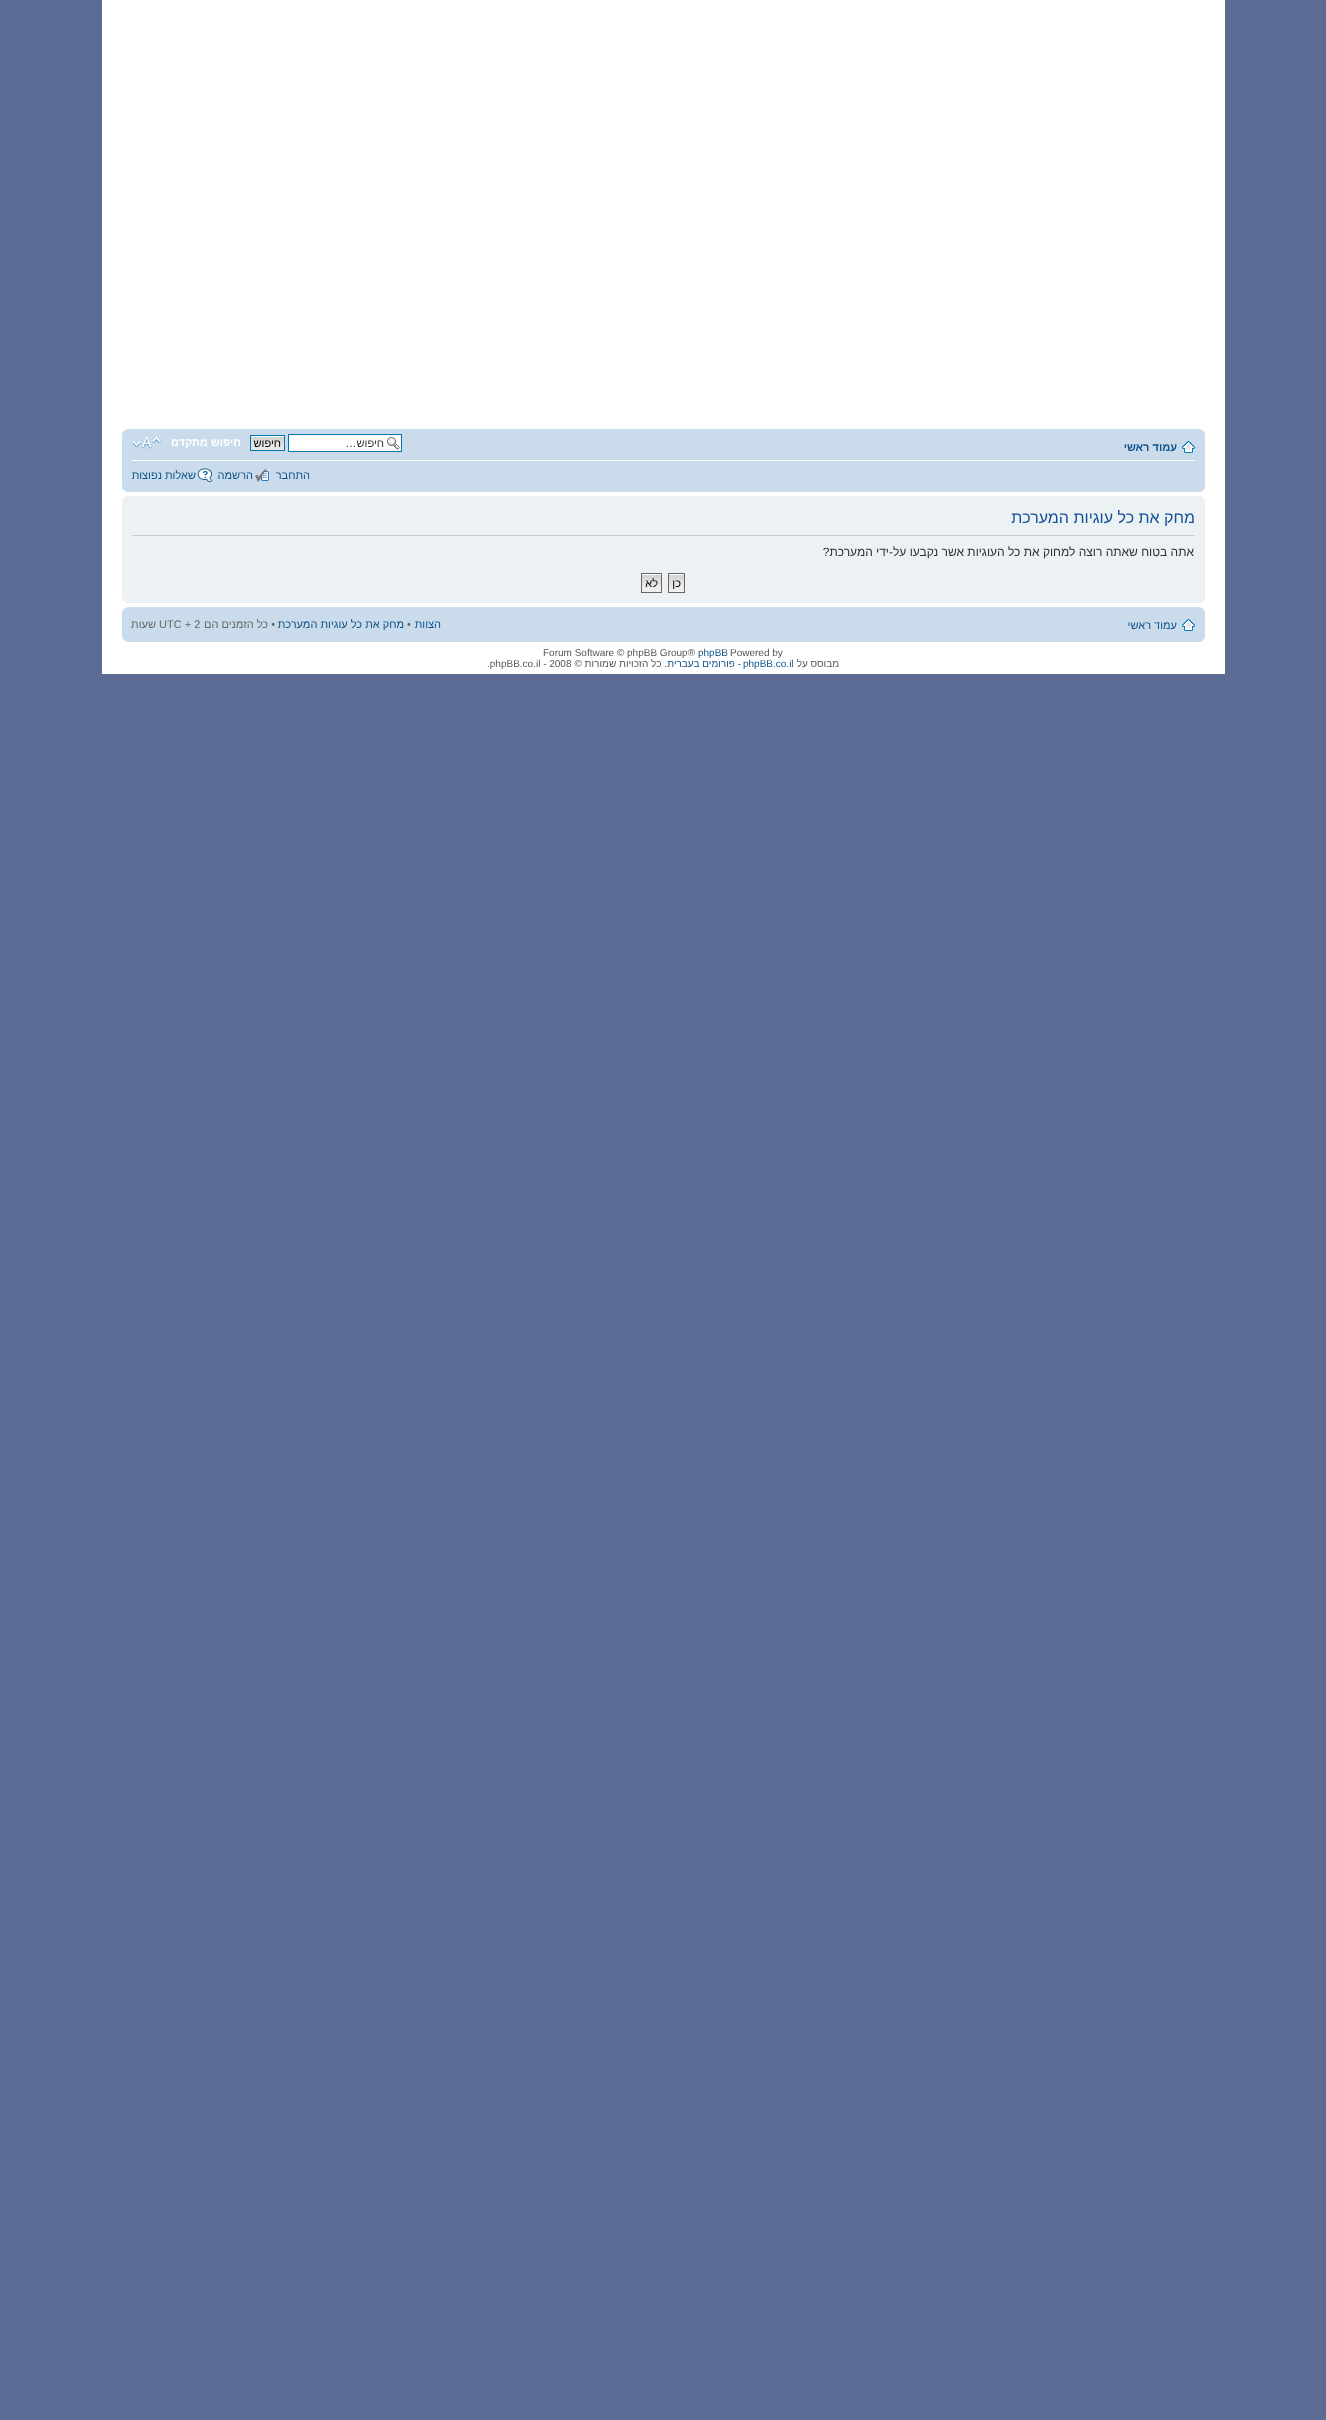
(async () => {
    const canvas = document.querySelector("canvas");
    canvas.width = 1326;
    canvas.height = 2420;
    const context = canvas.getContext("2d");
    context.miterLimit = 4;
    context.fontKerning = "normal";
    function write(s, x, y, font, color) {
        context.font = font;
        context.fillStyle = color;
        context.fillText(s, x, y);
    }
    function block(x, y, w, h, color) {
        context.fillStyle = color;
        context.fillRect(x, y, w, h);
    }
    async function photo(src, x, y, w, h) {
        const img = new Image();
        img.src = src;
        await img.decode();
        context.drawImage(img, x, y, w, h);
    }

    block(0, 0, 1326, 2420, "rgb(92, 107, 148)");
    block(102, 0, 1123, 674, "rgb(255, 255, 255)");
    block(122, 429, 1083, 63, "rgb(202, 220, 235)");
    await photo("media/1.png", 122, 429, 6, 5);
    await photo("media/2.png", 1200, 429, 5, 5);
    block(132, 460, 1063, 1, "rgb(255, 255, 255)");
    await photo("media/3.png", 1182, 441, 13, 12);
    context.direction = "rtl";
    write("עמוד ראשי", 1177, 451, "bold 11px Liberation Sans", "rgb(16, 82, 137)");
    block(289, 435, 112, 16, "rgb(255, 255, 255)");
    await photo("media/4.png", 387, 437, 13, 13);
    context.strokeStyle = "rgb(0, 117, 176)";
    context.strokeRect(288.5, 434.5, 113, 17);
    write("חיפוש…", 384, 447, "11px Liberation Sans", "rgb(51, 51, 51)");
    await photo("media/5.png", 251, 436, 33, 14);
    context.strokeRect(250.5, 435.5, 34, 15);
    write("חיפוש", 281, 447, "11px Liberation Sans", "rgb(0, 0, 0)");
    write("חיפוש מתקדם", 241, 446, "bold 11px Liberation Sans", "rgb(255, 255, 255)");
    await photo("media/6.png", 132, 437, 29, 12);
    write("התחבר", 310, 479, "11px Liberation Sans", "rgb(16, 82, 137)");
    await photo("media/7.png", 255, 469, 14, 13);
    write("הרשמה", 253, 479, "11px Liberation Sans", "rgb(16, 82, 137)");
    await photo("media/8.png", 197, 468, 16, 14);
    write("שאלות נפוצות", 196, 479, "11px Liberation Sans", "rgb(16, 82, 137)");
    await photo("media/9.png", 122, 487, 6, 5);
    await photo("media/10.png", 1200, 487, 5, 5);
    block(122, 496, 1083, 107, "rgb(236, 241, 243)");
    await photo("media/11.png", 122, 496, 5, 5);
    await photo("media/12.png", 1200, 496, 5, 5);
    block(132, 535, 1063, 1, "rgb(204, 204, 204)");
    write("מחק את כל עוגיות המערכת", 1195, 523, "16px Liberation Sans", "rgb(17, 80, 152)");
    write("אתה בטוח שאתה רוצה למחוק את כל העוגיות אשר נקבעו על-ידי המערכת?", 1194, 556, "12px Liberation Sans", "rgb(40, 49, 63)");
    await photo("media/13.png", 669, 574, 15, 18);
    context.strokeStyle = "rgb(102, 102, 102)";
    context.strokeRect(668.5, 573.5, 16, 19);
    write("כן", 681, 587, "11px Liberation Sans", "rgb(0, 0, 0)");
    await photo("media/14.png", 642, 574, 19, 18);
    context.strokeRect(641.5, 573.5, 20, 19);
    write("לא", 658, 587, "11px Liberation Sans", "rgb(0, 0, 0)");
    await photo("media/15.png", 122, 598, 5, 5);
    await photo("media/16.png", 1200, 598, 5, 5);
    block(122, 607, 1083, 35, "rgb(202, 220, 235)");
    await photo("media/1.png", 122, 607, 6, 5);
    await photo("media/2.png", 1200, 607, 5, 5);
    await photo("media/3.png", 1182, 619, 13, 12);
    write("עמוד ראשי", 1177, 629, "11px Liberation Sans", "rgb(16, 82, 137)");
    write("הצוות", 441, 628, "11px Liberation Sans", "rgb(16, 82, 137)");
    context.direction = "ltr";
    write("•", 407, 628, "11px Liberation Sans", "rgb(102, 102, 102)");
    context.direction = "rtl";
    write("מחק את כל עוגיות המערכת", 404, 628, "11px Liberation Sans", "rgb(16, 82, 137)");
    write("• כל הזמנים הם", 275, 628, "11px Liberation Sans", "rgb(102, 102, 102)");
    context.direction = "ltr";
    write("UTC + 2", 159, 628, "11px Liberation Sans", "rgb(102, 102, 102)");
    context.direction = "rtl";
    write("שעות", 156, 628, "11px Liberation Sans", "rgb(102, 102, 102)");
    await photo("media/9.png", 122, 637, 6, 5);
    await photo("media/10.png", 1200, 637, 5, 5);
    context.direction = "ltr";
    write("Powered by", 730, 656, "10px Liberation Sans", "rgb(85, 85, 85)");
    write("phpBB", 698, 656, "10px Liberation Sans", "rgb(16, 82, 137)");
    write("Forum Software © phpBB Group®", 543, 656, "10px Liberation Sans", "rgb(85, 85, 85)");
    context.direction = "rtl";
    write("מבוסס על", 839, 667, "10px Liberation Sans", "rgb(85, 85, 85)");
    context.direction = "ltr";
    write("phpBB.co.il", 743, 667, "10px Liberation Sans", "rgb(16, 82, 137)");
    context.direction = "rtl";
    write("- פורומים בעברית", 741, 667, "10px Liberation Sans", "rgb(16, 82, 137)");
    write(". כל הזכויות שמורות ©", 667, 667, "10px Liberation Sans", "rgb(85, 85, 85)");
    context.direction = "ltr";
    write(".phpBB.co.il - 2008", 487, 667, "10px Liberation Sans", "rgb(85, 85, 85)");
})();
